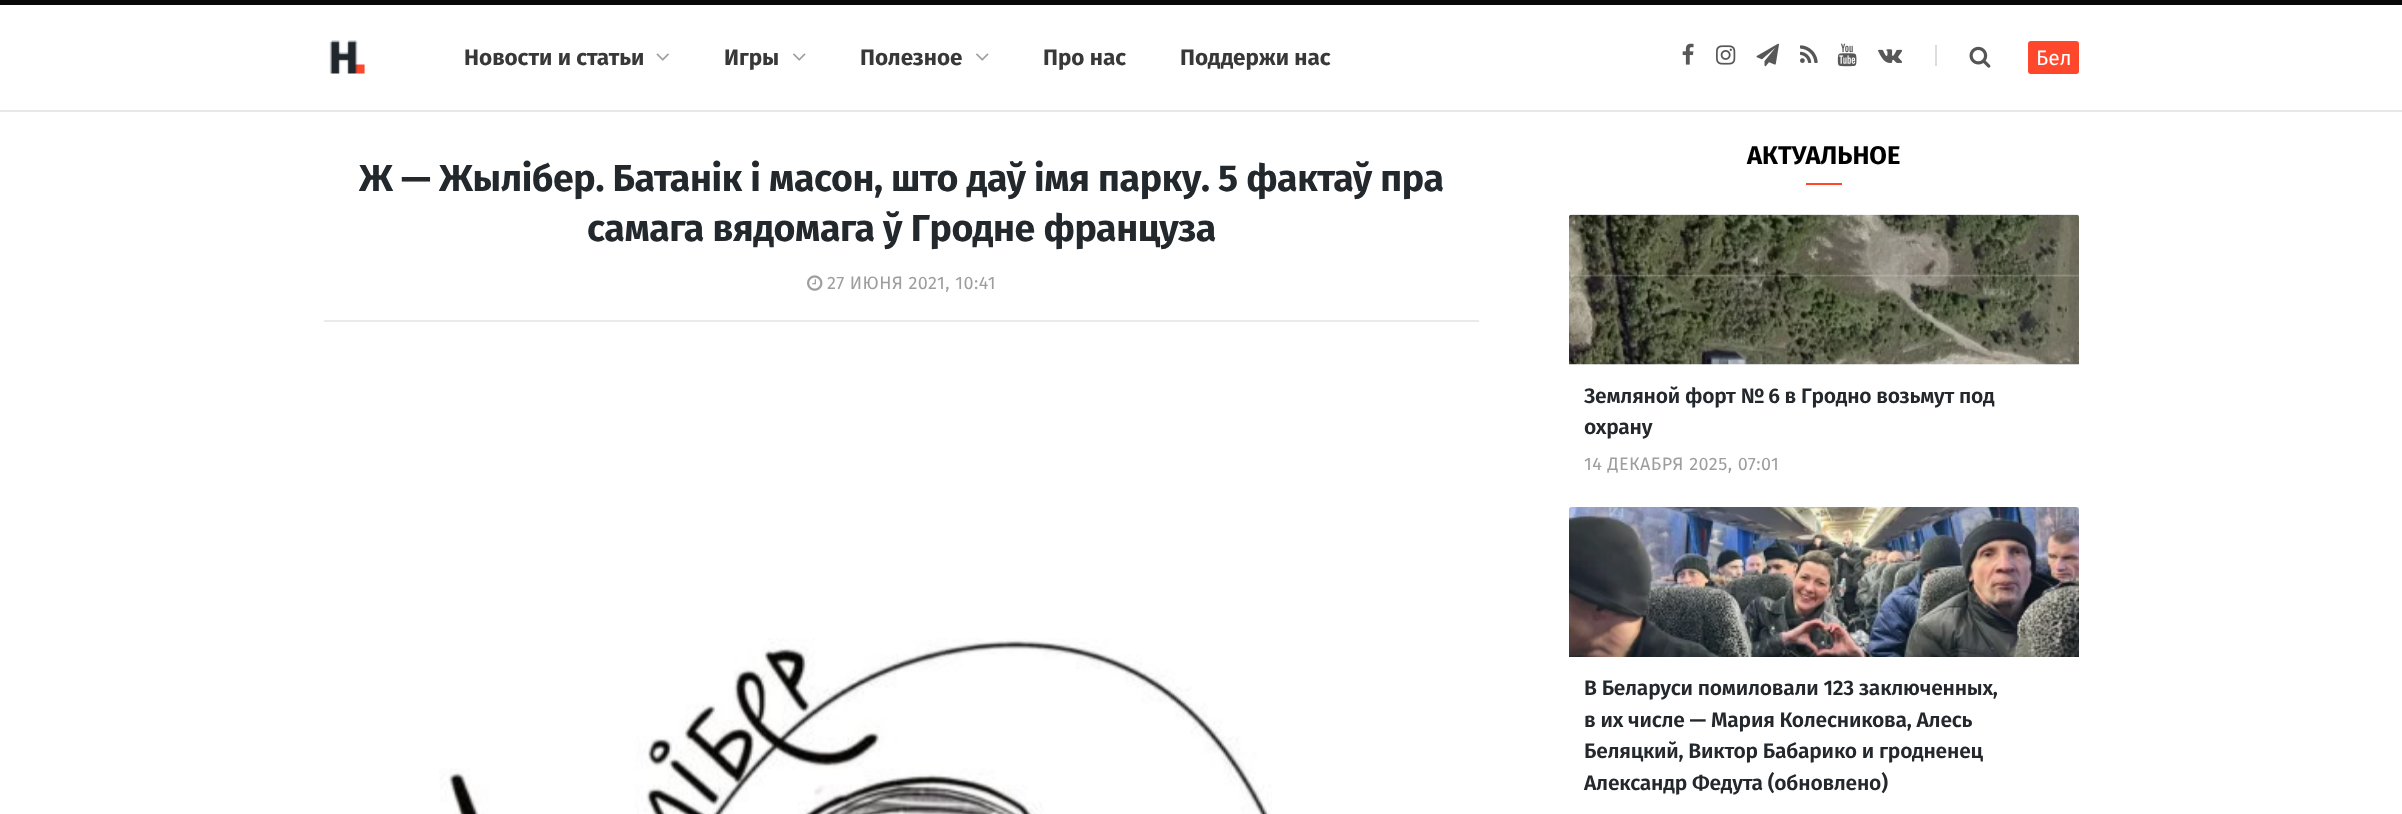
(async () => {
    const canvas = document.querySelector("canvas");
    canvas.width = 2402;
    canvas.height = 814;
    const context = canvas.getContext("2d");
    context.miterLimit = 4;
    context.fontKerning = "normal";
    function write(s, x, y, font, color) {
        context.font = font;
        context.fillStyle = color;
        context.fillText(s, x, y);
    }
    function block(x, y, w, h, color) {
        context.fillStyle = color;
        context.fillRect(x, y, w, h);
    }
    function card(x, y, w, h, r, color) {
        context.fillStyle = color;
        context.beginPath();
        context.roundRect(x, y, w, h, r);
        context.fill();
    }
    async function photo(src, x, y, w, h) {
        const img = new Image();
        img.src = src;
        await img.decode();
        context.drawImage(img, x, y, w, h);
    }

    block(0, 0, 2402, 814, "rgb(255, 255, 255)");
    block(0, 0, 2402, 5, "rgb(9, 9, 9)");
    block(0, 110, 2402, 2, "rgb(231, 231, 231)");
    await photo("media/1.png", 329, 40, 36, 34);
    write("Новости и статьи", 464, 65, "bold 22.5px Fira Sans", "rgb(56, 56, 56)");
    await photo("media/2.png", 656, 53, 13, 8);
    write("Игры", 724, 65, "bold 22.5px Fira Sans", "rgb(56, 56, 56)");
    await photo("media/3.png", 793, 53, 13, 8);
    write("Полезное", 860, 65, "bold 22.5px Fira Sans", "rgb(56, 56, 56)");
    await photo("media/3.png", 976, 53, 13, 8);
    write("Про нас", 1043, 65, "bold 22.5px Fira Sans", "rgb(56, 56, 56)");
    write("Поддержи нас", 1180, 65, "bold 22.5px Fira Sans", "rgb(56, 56, 56)");
    await photo("media/4.png", 1682, 43, 12, 22);
    await photo("media/5.png", 1716, 45, 20, 20);
    await photo("media/6.png", 1756, 43, 23, 24);
    await photo("media/7.png", 1800, 45, 18, 18);
    await photo("media/8.png", 1837, 43, 20, 24);
    await photo("media/9.png", 1878, 49, 25, 14);
    block(1935, 45, 2, 21, "rgb(221, 221, 221)");
    await photo("media/10.png", 1969, 46, 22, 22);
    card(2028, 41, 51, 33, 3, "rgb(255, 71, 44)");
    write("Бел", 2036, 65, "21px Fira Sans", "rgb(255, 255, 255)");
    context.letterSpacing = "-0.38px";
    write("Ж — Жылібер. Батанік і масон, што даў імя парку. 5 фактаў пра", 359, 191, "bold 37.5px Fira Sans", "rgb(35, 40, 45)");
    write("самага вядомага ў Гродне француза", 587, 241, "bold 37.5px Fira Sans", "rgb(35, 40, 45)");
    block(324, 320, 1155, 2, "rgb(234, 234, 234)");
    await photo("media/11.png", 807, 275, 16, 16);
    context.letterSpacing = "0.45px";
    write("27 ИЮНЯ 2021, 10:41", 827, 289, "18px Fira Sans", "rgb(158, 158, 158)");
    await photo("media/12.png", 439, 638, 833, 176);
    context.letterSpacing = "0px";
    write("АКТУАЛЬНОЕ", 1747, 164, "bold 25.5px Fira Sans", "rgb(0, 0, 0)");
    block(1806, 183, 36, 2, "rgb(255, 71, 44)");
    await photo("media/13.png", 1569, 214, 510, 151);
    context.letterSpacing = "-0.2px";
    write("Земляной форт № 6 в Гродно возьмут под", 1584, 403, "600 21px Fira Sans", "rgb(35, 40, 45)");
    write("охрану", 1584, 434, "600 21px Fira Sans", "rgb(35, 40, 45)");
    context.letterSpacing = "0.45px";
    write("14 ДЕКАБРЯ 2025, 07:01", 1584, 470, "18px Fira Sans", "rgb(158, 158, 158)");
    await photo("media/14.png", 1569, 507, 510, 150);
    context.letterSpacing = "-0.2px";
    write("В Беларуси помиловали 123 заключенных,", 1584, 695, "600 21px Fira Sans", "rgb(35, 40, 45)");
    write("в их числе — Мария Колесникова, Алесь", 1584, 727, "600 21px Fira Sans", "rgb(35, 40, 45)");
    write("Беляцкий, Виктор Бабарико и гродненец", 1584, 758, "600 21px Fira Sans", "rgb(35, 40, 45)");
    write("Александр Федута (обновлено)", 1584, 790, "600 21px Fira Sans", "rgb(35, 40, 45)");
})();
